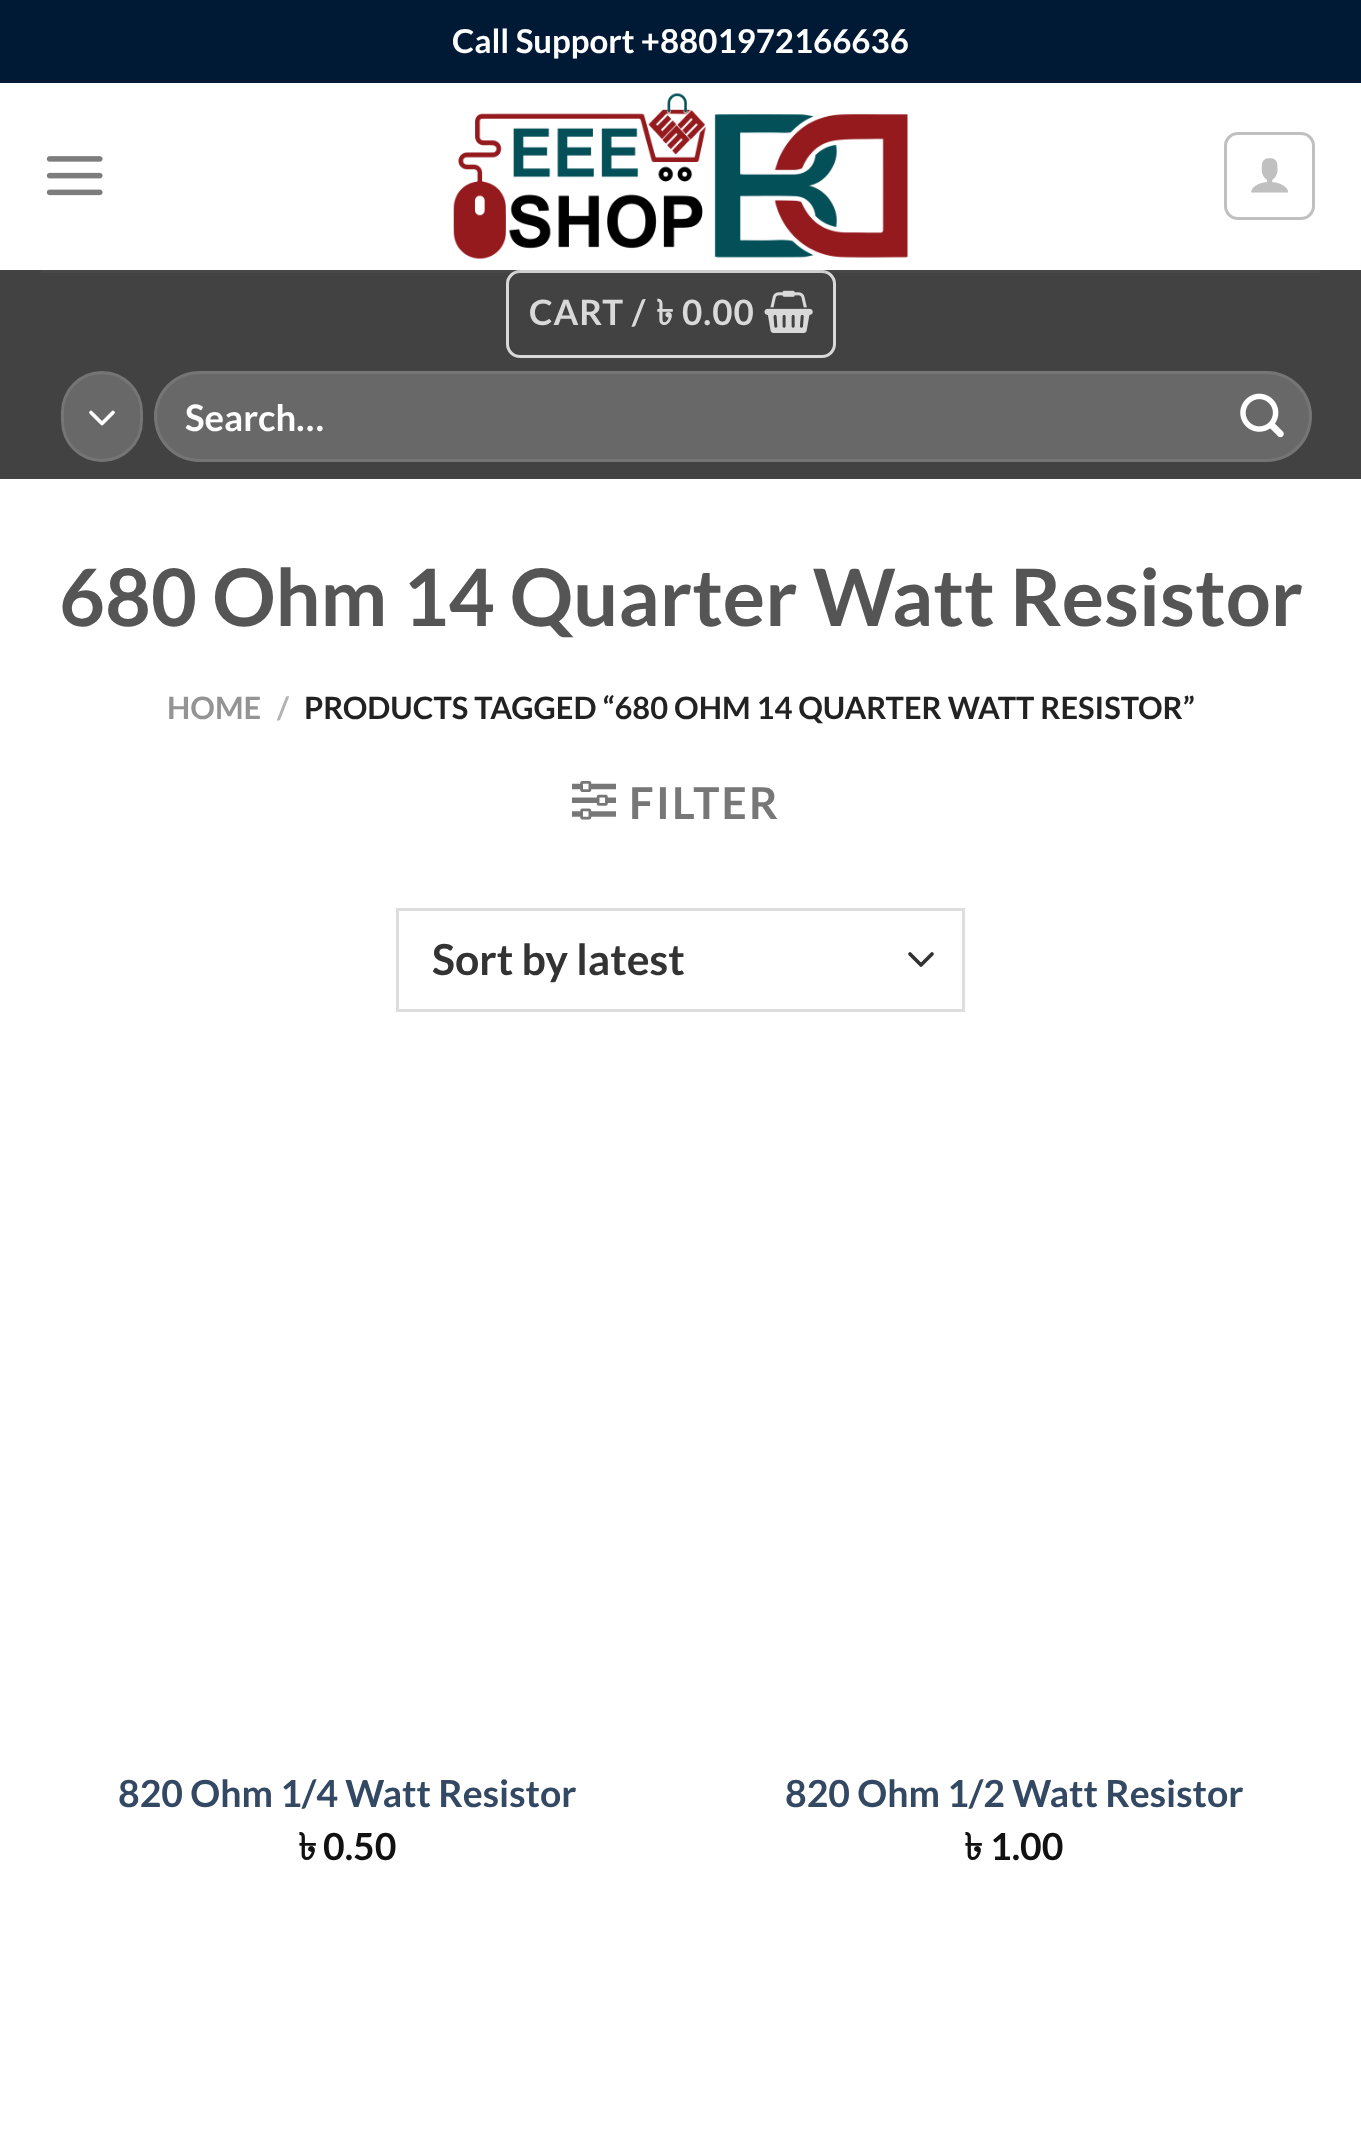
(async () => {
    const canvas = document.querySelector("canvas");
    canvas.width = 1361;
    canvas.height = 2154;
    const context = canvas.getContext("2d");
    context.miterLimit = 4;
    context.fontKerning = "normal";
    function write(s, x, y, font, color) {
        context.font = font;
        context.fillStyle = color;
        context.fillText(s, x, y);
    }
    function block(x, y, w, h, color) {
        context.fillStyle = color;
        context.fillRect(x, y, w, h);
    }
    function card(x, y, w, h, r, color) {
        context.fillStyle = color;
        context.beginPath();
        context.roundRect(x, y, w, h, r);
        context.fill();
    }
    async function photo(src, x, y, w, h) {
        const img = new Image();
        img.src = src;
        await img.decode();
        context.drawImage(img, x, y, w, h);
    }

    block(0, 0, 1361, 2154, "rgb(255, 255, 255)");
    block(0, 0, 1361, 83, "rgb(0, 26, 54)");
    write("Call Support +8801972166636", 452, 53, "bold 33px Lato", "rgb(255, 255, 255)");
    await photo("media/1.png", 46, 156, 57, 40);
    await photo("media/2.png", 453, 93, 455, 166);
    context.beginPath();
    context.roundRect(1225.5, 133.5, 88, 85, 12.5);
    context.strokeStyle = "rgb(192, 192, 192)";
    context.lineWidth = 3;
    context.stroke();
    await photo("media/3.png", 1251, 158, 37, 35);
    block(0, 270, 1361, 209, "rgb(66, 66, 66)");
    context.beginPath();
    context.roundRect(507.5, 271.5, 327, 85, 12.5);
    context.strokeStyle = "rgb(217, 217, 217)";
    context.stroke();
    block(41, 270, 1279, 3, "rgba(119, 119, 119, 0.1)");
    context.letterSpacing = "1px";
    write("CART /", 529, 325, "bold 35px Lato", "rgb(217, 217, 217)");
    write("৳", 656, 325, "bold 35px Lohit Bengali", "rgb(217, 217, 217)");
    write("0.00", 682, 325, "bold 35px Lato", "rgb(217, 217, 217)");
    await photo("media/4.png", 764, 290, 49, 43);
    card(61, 371, 82, 91, 41, "rgb(104, 104, 104)");
    context.beginPath();
    context.moveTo(91, 412.5);
    context.lineTo(102, 423.5);
    context.lineTo(113, 412.5);
    context.strokeStyle = "rgb(255, 255, 255)";
    context.lineWidth = 3.7;
    context.lineCap = "round";
    context.lineJoin = "round";
    context.stroke();
    context.beginPath();
    context.roundRect(62.5, 372.5, 79, 88, 39.5);
    context.strokeStyle = "rgba(255, 255, 255, 0.09)";
    context.lineWidth = 3;
    context.lineJoin = "miter";
    context.stroke();
    card(154, 371, 1158, 91, 45.5, "rgb(104, 104, 104)");
    context.beginPath();
    context.roundRect(155.5, 372.5, 1155, 88, 44);
    context.stroke();
    context.letterSpacing = "0px";
    write("Search…", 185, 431, "bold 36.5px Lato", "rgb(255, 255, 255)");
    await photo("media/5.png", 1240, 393, 44, 45);
    write("680 Ohm 14 Quarter Watt Resistor", 59, 626, "bold 79.25px Lato", "rgb(85, 85, 85)");
    write("HOME", 167, 719, "bold 30.8px Lato", "rgb(148, 148, 148)");
    write("/", 277, 719, "bold 30.8px Lato", "rgb(178, 178, 178)");
    write("PRODUCTS TAGGED “680 OHM 14 QUARTER WATT RESISTOR”", 304, 719, "bold 30.8px Lato", "rgb(34, 34, 34)");
    await photo("media/6.png", 572, 781, 44, 39);
    context.letterSpacing = "2.25px";
    write("FILTER", 629, 819, "bold 44px Lato", "rgb(119, 119, 119)");
    context.beginPath();
    context.moveTo(910, 954);
    context.lineTo(921, 965);
    context.lineTo(932, 954);
    context.strokeStyle = "rgb(51, 51, 51)";
    context.lineWidth = 3.7;
    context.lineJoin = "round";
    context.stroke();
    context.strokeStyle = "rgb(221, 221, 221)";
    context.lineWidth = 3;
    context.lineJoin = "miter";
    context.strokeRect(397.5, 909.5, 566, 101);
    context.letterSpacing = "0px";
    write("Sort by latest", 432, 975, "bold 42.75px Lato", "rgb(51, 51, 51)");
    write("820 Ohm 1/4 Watt Resistor", 118, 1807, "bold 37.4px Lato", "rgb(51, 72, 98)");
    write("৳", 298, 1860, "bold 37.4px Lohit Bengali", "rgb(17, 17, 17)");
    write("0.50", 323, 1860, "bold 37.4px Lato", "rgb(17, 17, 17)");
    write("820 Ohm 1/2 Watt Resistor", 785, 1807, "bold 37.4px Lato", "rgb(51, 72, 98)");
    write("৳", 964, 1860, "bold 37.4px Lohit Bengali", "rgb(17, 17, 17)");
    write("1.00", 990, 1860, "bold 37.4px Lato", "rgb(17, 17, 17)");
})();
